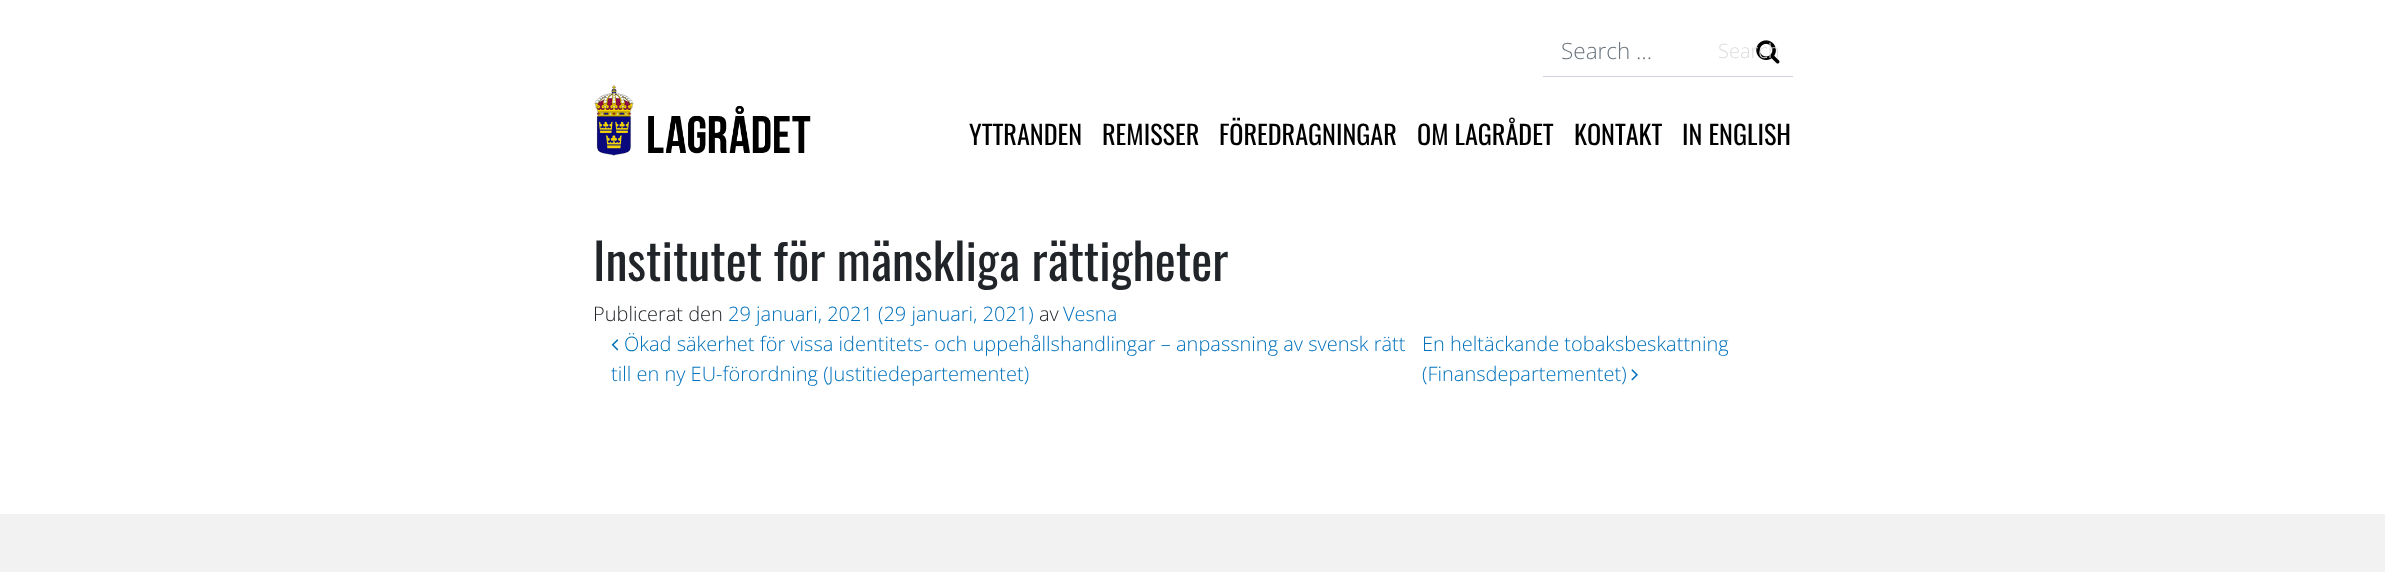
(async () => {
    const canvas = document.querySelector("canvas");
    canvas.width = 2385;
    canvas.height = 572;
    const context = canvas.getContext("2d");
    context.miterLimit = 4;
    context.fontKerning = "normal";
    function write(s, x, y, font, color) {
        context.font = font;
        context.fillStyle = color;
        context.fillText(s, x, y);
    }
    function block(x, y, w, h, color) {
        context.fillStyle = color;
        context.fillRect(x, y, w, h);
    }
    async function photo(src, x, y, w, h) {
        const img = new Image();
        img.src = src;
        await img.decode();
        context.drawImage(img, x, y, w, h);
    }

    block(0, 0, 2385, 572, "rgb(255, 255, 255)");
    block(1543, 76, 250, 1, "rgb(206, 212, 218)");
    write("Search …", 1561, 59, "300 22.5px Open Sans", "rgb(108, 117, 125)");
    await photo("media/1.png", 1756, 40, 24, 24);
    write("Search", 1718, 58, "300 20px Open Sans", "rgb(220, 220, 220)");
    await photo("media/2.png", 594, 85, 217, 71);
    write("YTTRANDEN", 969, 145, "26.25px Oswald", "rgb(0, 0, 0)");
    write("REMISSER", 1102, 145, "26.25px Oswald", "rgb(0, 0, 0)");
    write("FÖREDRAGNINGAR", 1219, 145, "26.25px Oswald", "rgb(0, 0, 0)");
    write("OM LAGRÅDET", 1417, 145, "26.25px Oswald", "rgb(0, 0, 0)");
    write("KONTAKT", 1574, 145, "26.25px Oswald", "rgb(0, 0, 0)");
    write("IN ENGLISH", 1682, 145, "26.25px Oswald", "rgb(0, 0, 0)");
    write("Institutet för mänskliga rättigheter", 593, 281, "50px Oswald", "rgb(33, 37, 41)");
    write("Publicerat den", 593, 321, "300 20px Open Sans", "rgb(33, 37, 41)");
    write("29 januari, 2021 (29 januari, 2021)", 728, 321, "300 20px Open Sans", "rgb(0, 113, 188)");
    write("av", 1039, 321, "300 20px Open Sans", "rgb(33, 37, 41)");
    write("Vesna", 1063, 321, "300 20px Open Sans", "rgb(0, 113, 188)");
    await photo("media/3.png", 611, 339, 8, 12);
    write("Ökad säkerhet för vissa identitets- och uppehållshandlingar – anpassning av svensk rätt", 624, 351, "300 20px Open Sans", "rgb(0, 113, 188)");
    write("till en ny EU-förordning (Justitiedepartementet)", 611, 381, "300 20px Open Sans", "rgb(0, 113, 188)");
    write("En heltäckande tobaksbeskattning", 1422, 351, "300 20px Open Sans", "rgb(0, 113, 188)");
    write("(Finansdepartementet)", 1422, 381, "300 20px Open Sans", "rgb(0, 113, 188)");
    await photo("media/4.png", 1631, 369, 7, 12);
    block(0, 514, 2385, 58, "rgb(242, 242, 242)");
})();
